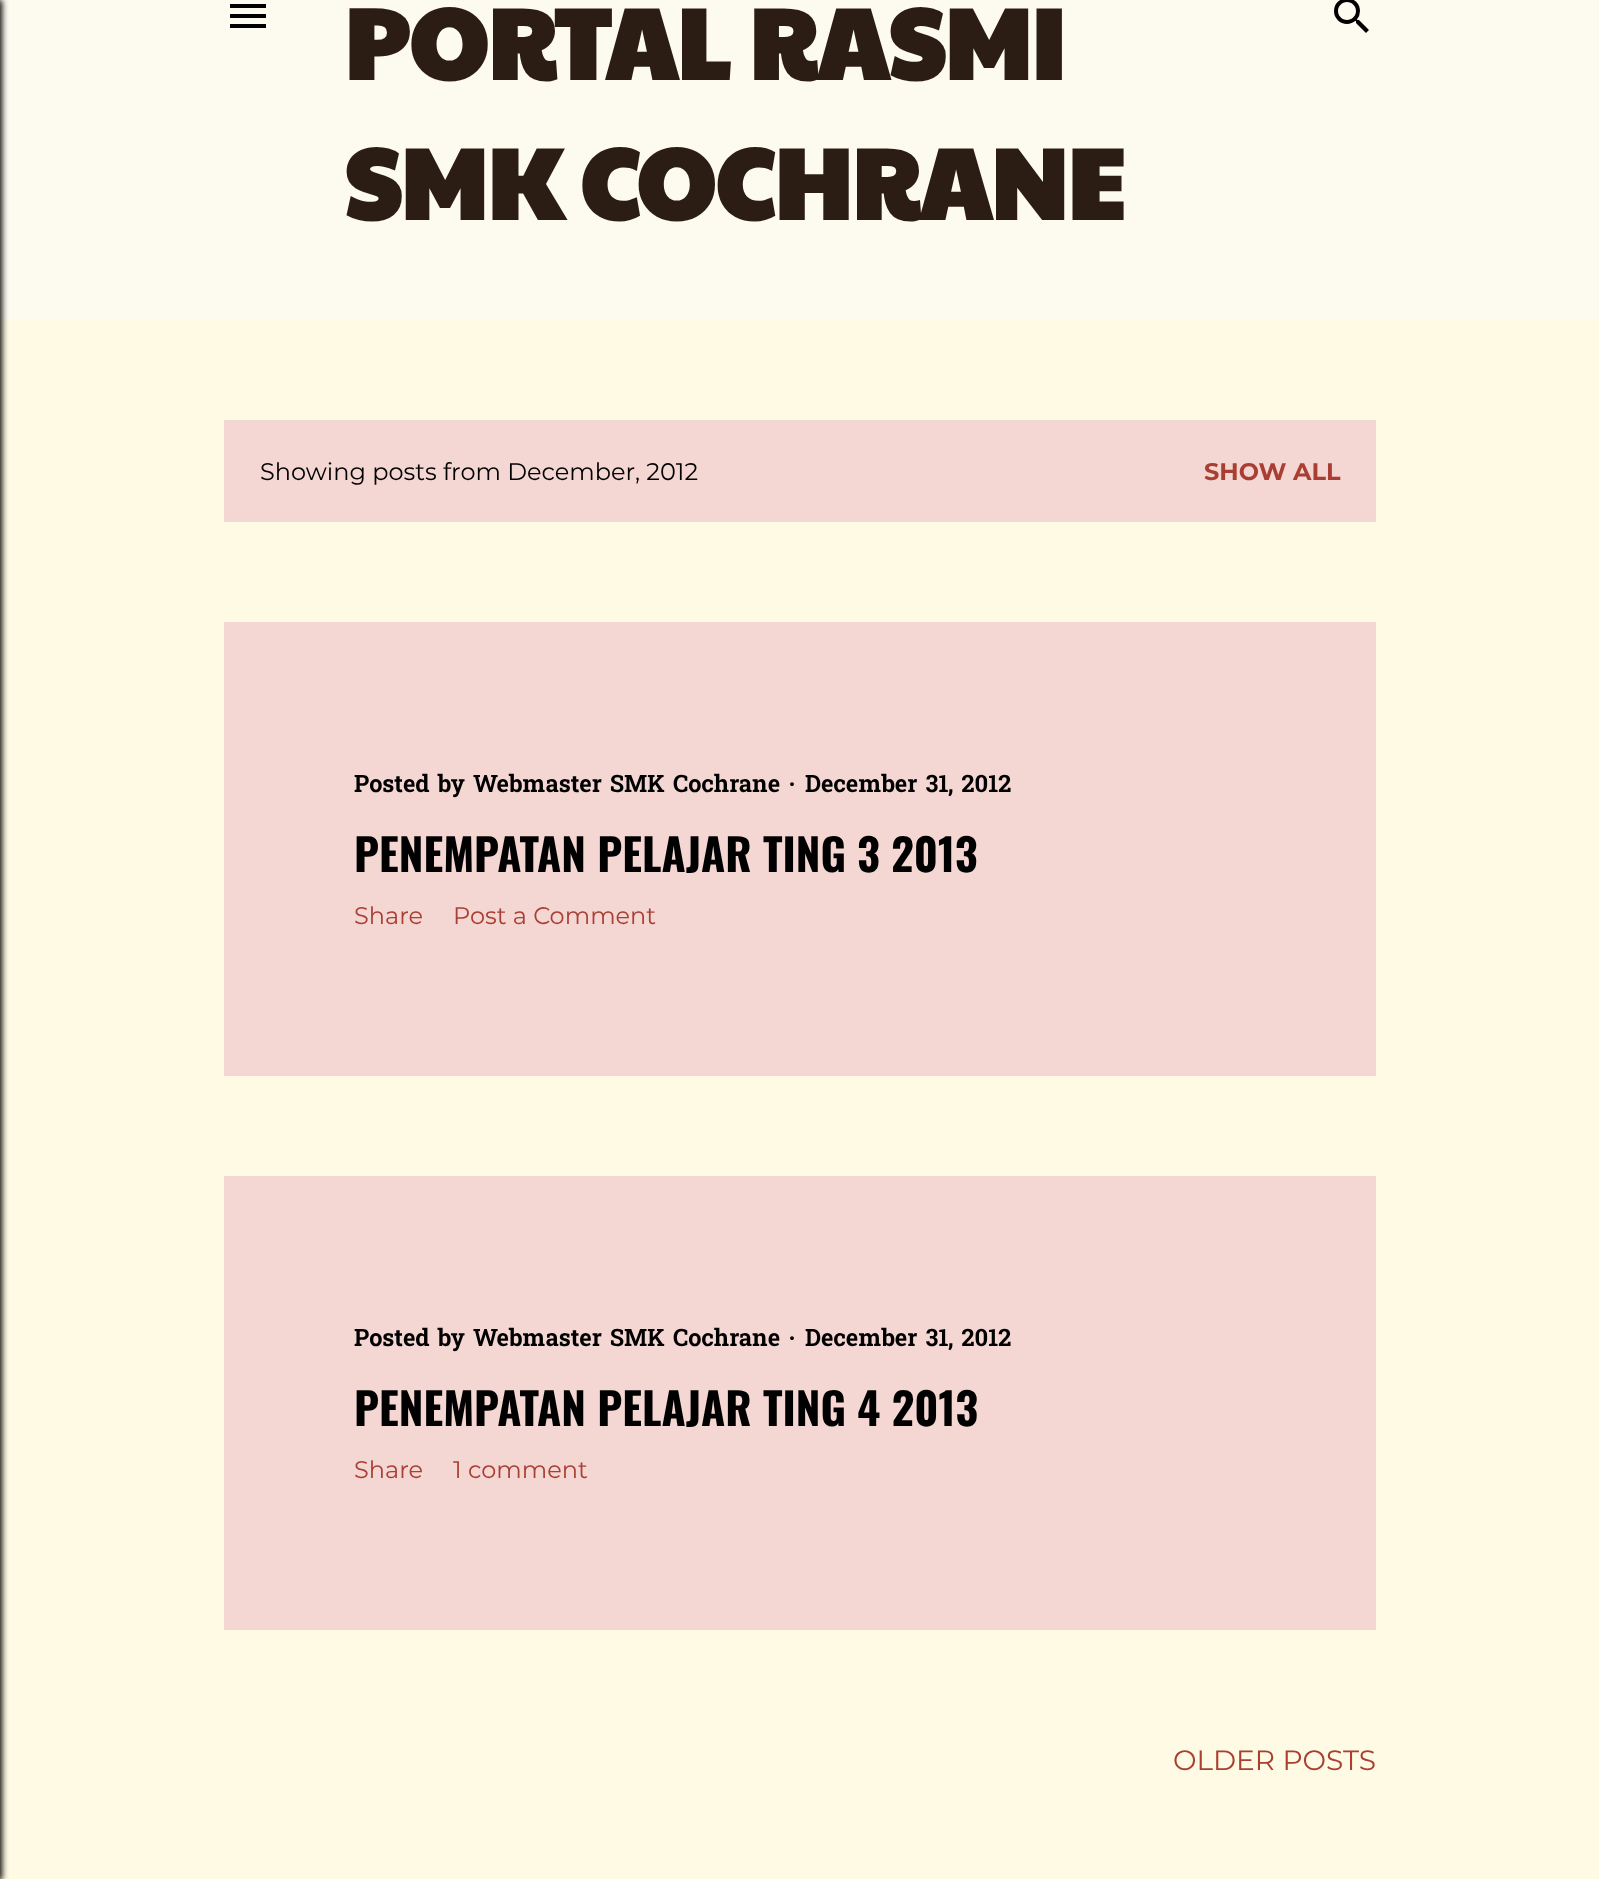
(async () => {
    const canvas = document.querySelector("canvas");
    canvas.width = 1599;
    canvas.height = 1879;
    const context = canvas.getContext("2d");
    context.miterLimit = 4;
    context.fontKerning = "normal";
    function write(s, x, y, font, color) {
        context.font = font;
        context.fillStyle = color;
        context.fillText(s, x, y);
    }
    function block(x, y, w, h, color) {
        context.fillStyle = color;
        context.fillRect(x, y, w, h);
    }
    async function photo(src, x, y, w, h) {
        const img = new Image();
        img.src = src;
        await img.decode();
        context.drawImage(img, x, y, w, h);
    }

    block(0, 0, 1599, 1879, "rgb(255, 250, 227)");
    block(0, 0, 1599, 320, "rgb(253, 250, 240)");
    context.fillStyle = "rgb(0, 0, 0)";
    context.filter = "blur(3px)";
    context.beginPath();
    context.rect(-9, 0, 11, 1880);
    context.fill();
    context.filter = "none";
    await photo("media/1.png", 230, 4, 36, 24);
    write("PORTAL RASMI", 344, 80, "bold 100px Paytone One", "rgb(44, 29, 20)");
    write("SMK COCHRANE", 344, 220, "bold 100px Paytone One", "rgb(44, 29, 20)");
    await photo("media/2.png", 1334, 0, 35, 33);
    block(224, 420, 1152, 102, "rgb(244, 214, 211)");
    write("Showing posts from December, 2012", 260, 480, "24px Montserrat", "rgb(0, 0, 0)");
    write("SHOW ALL", 1204, 480, "bold 24px Montserrat", "rgb(169, 62, 51)");
    block(224, 622, 1152, 454, "rgb(244, 214, 211)");
    write("Posted by Webmaster SMK Cochrane", 354, 792, "bold 24px Hanuman", "rgb(0, 0, 0)");
    write("·", 788, 792, "bold 24px Liberation Serif", "rgb(0, 0, 0)");
    write("December 31, 2012", 805, 792, "bold 24px Hanuman", "rgb(0, 0, 0)");
    write("PENEMPATAN PELAJAR TING 3 2013", 354, 872, "bold 44px Oswald", "rgb(0, 0, 0)");
    write("Share", 354, 924, "24px Montserrat", "rgb(169, 62, 51)");
    write("Post a Comment", 453, 924, "24px Montserrat", "rgb(169, 62, 51)");
    block(224, 1176, 1152, 454, "rgb(244, 214, 211)");
    write("Posted by Webmaster SMK Cochrane", 354, 1346, "bold 24px Hanuman", "rgb(0, 0, 0)");
    write("·", 788, 1346, "bold 24px Liberation Serif", "rgb(0, 0, 0)");
    write("December 31, 2012", 805, 1346, "bold 24px Hanuman", "rgb(0, 0, 0)");
    write("PENEMPATAN PELAJAR TING 4 2013", 354, 1426, "bold 44px Oswald", "rgb(0, 0, 0)");
    write("Share", 354, 1478, "24px Montserrat", "rgb(169, 62, 51)");
    write("1 comment", 453, 1478, "24px Montserrat", "rgb(169, 62, 51)");
    write("OLDER POSTS", 1173, 1770, "28px Montserrat", "rgb(169, 62, 51)");
})();
